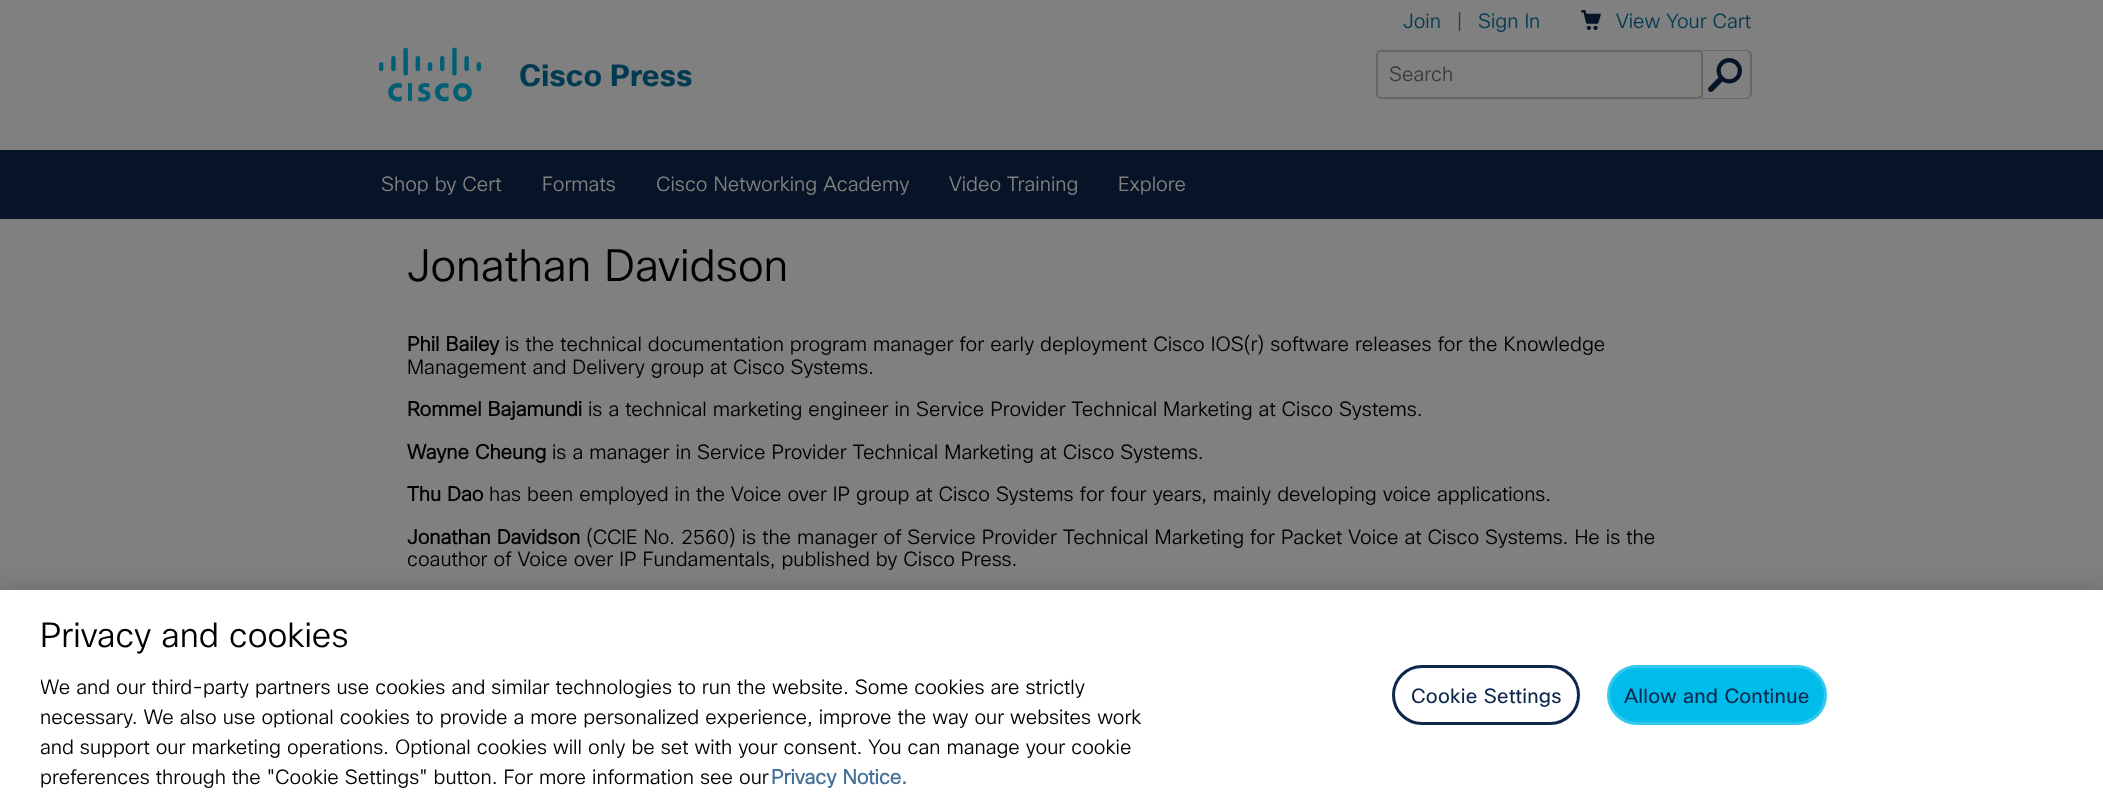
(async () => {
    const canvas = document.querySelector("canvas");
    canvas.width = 2103;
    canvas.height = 805;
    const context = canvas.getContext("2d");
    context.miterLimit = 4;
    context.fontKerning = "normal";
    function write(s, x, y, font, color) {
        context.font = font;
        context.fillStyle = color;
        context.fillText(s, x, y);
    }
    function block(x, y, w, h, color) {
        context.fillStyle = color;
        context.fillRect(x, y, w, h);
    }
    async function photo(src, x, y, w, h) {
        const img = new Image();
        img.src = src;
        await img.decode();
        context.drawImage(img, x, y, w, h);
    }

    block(0, 0, 2103, 805, "rgb(128, 128, 128)");
    await photo("media/1.png", 379, 47, 103, 55);
    write("Cisco Press", 519, 86, "bold 30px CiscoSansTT", "rgb(1, 59, 81)");
    write("Join", 1403, 28, "300 20px CiscoSansTT", "rgb(1, 59, 81)");
    write("|", 1456, 28, "300 20px CiscoSansTT", "rgb(63, 51, 51)");
    write("Sign In", 1478, 28, "300 20px CiscoSansTT", "rgb(1, 59, 81)");
    await photo("media/2.png", 1581, 10, 20, 20);
    write("View Your Cart", 1616, 28, "300 20px CiscoSansTT", "rgb(1, 59, 81)");
    context.beginPath();
    context.roundRect(1377, 51, 325, 47, 4);
    context.strokeStyle = "rgb(102, 102, 102)";
    context.lineWidth = 2;
    context.stroke();
    write("Search", 1389, 81, "300 20px CiscoSansTT", "rgb(59, 59, 59)");
    context.fillStyle = "rgb(102, 102, 102)";
    context.beginPath();
    context.moveTo(1701, 50);
    context.lineTo(1746, 50);
    context.bezierCurveTo(1749, 50, 1752, 52, 1752, 56);
    context.lineTo(1752, 93);
    context.bezierCurveTo(1752, 96, 1749, 99, 1746, 99);
    context.lineTo(1701, 99);
    context.closePath();
    context.moveTo(1701, 51);
    context.lineTo(1746, 51);
    context.bezierCurveTo(1748, 51, 1750, 53, 1750, 56);
    context.lineTo(1750, 93);
    context.bezierCurveTo(1750, 95, 1748, 98, 1746, 98);
    context.lineTo(1701, 98);
    context.closePath();
    context.fill("evenodd");
    write("🔎", 1708, 92, "34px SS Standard", "rgb(7, 20, 39)");
    block(0, 150, 2103, 69, "rgb(7, 20, 39)");
    write("Shop by Cert", 381, 191, "300 20px CiscoSansTT", "rgb(128, 128, 128)");
    write("Formats", 542, 191, "300 20px CiscoSansTT", "rgb(128, 128, 128)");
    write("Cisco Networking Academy", 656, 191, "300 20px CiscoSansTT", "rgb(128, 128, 128)");
    write("Video Training", 949, 191, "300 20px CiscoSansTT", "rgb(128, 128, 128)");
    write("Explore", 1118, 191, "300 20px CiscoSansTT", "rgb(128, 128, 128)");
    write("Jonathan Davidson", 407, 281, "300 44px CiscoSansTT", "rgb(0, 0, 0)");
    write("Phil Bailey", 407, 351, "bold 20px 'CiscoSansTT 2'", "rgb(0, 0, 0)");
    write("is the technical documentation program manager for early deployment Cisco IOS(r) software releases for the Knowledge", 505, 351, "300 20px CiscoSansTT", "rgb(0, 0, 0)");
    write("Management and Delivery group at Cisco Systems.", 407, 374, "300 20px CiscoSansTT", "rgb(0, 0, 0)");
    write("Rommel Bajamundi", 407, 416, "bold 20px 'CiscoSansTT 2'", "rgb(0, 0, 0)");
    write("is a technical marketing engineer in Service Provider Technical Marketing at Cisco Systems.", 588, 416, "300 20px CiscoSansTT", "rgb(0, 0, 0)");
    write("Wayne Cheung", 407, 459, "bold 20px 'CiscoSansTT 2'", "rgb(0, 0, 0)");
    write("is a manager in Service Provider Technical Marketing at Cisco Systems.", 552, 459, "300 20px CiscoSansTT", "rgb(0, 0, 0)");
    write("Thu Dao", 407, 501, "bold 20px 'CiscoSansTT 2'", "rgb(0, 0, 0)");
    write("has been employed in the Voice over IP group at Cisco Systems for four years, mainly developing voice applications.", 489, 501, "300 20px CiscoSansTT", "rgb(0, 0, 0)");
    write("Jonathan Davidson", 407, 544, "bold 20px 'CiscoSansTT 2'", "rgb(0, 0, 0)");
    write("(CCIE No. 2560) is the manager of Service Provider Technical Marketing for Packet Voice at Cisco Systems. He is the", 586, 544, "300 20px CiscoSansTT", "rgb(0, 0, 0)");
    write("coauthor of Voice over IP Fundamentals, published by Cisco Press.", 407, 566, "300 20px CiscoSansTT", "rgb(0, 0, 0)");
    context.fillStyle = "rgba(0, 0, 0, 0.2)";
    context.filter = "blur(13.5px)";
    context.beginPath();
    context.rect(0, 590, 2103, 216);
    context.fill();
    context.filter = "none";
    block(0, 590, 2103, 215, "rgb(255, 255, 255)");
    write("Privacy and cookies", 40, 647, "300 34px CiscoSansTT", "rgb(0, 0, 0)");
    context.save();
    context.beginPath();
    context.rect(41, 614, 1116, 180);
    context.clip();
    write("We and our third-party partners use cookies and similar technologies to run the website. Some cookies are strictly", 40, 694, "300 20px CiscoSansTT", "rgb(0, 0, 0)");
    context.restore();
    write("necessary. We also use optional cookies to provide a more personalized experience, improve the way our websites work", 40, 724, "300 20px CiscoSansTT", "rgb(0, 0, 0)");
    write("and support our marketing operations. Optional cookies will only be set with your consent. You can manage your cookie", 40, 754, "300 20px CiscoSansTT", "rgb(0, 0, 0)");
    write("preferences through the \"Cookie Settings\" button. For more information see our", 40, 784, "300 20px CiscoSansTT", "rgb(0, 0, 0)");
    write("Privacy Notice.", 771, 784, "bold 20px 'CiscoSansTT 2'", "rgb(68, 112, 153)");
    context.beginPath();
    context.roundRect(1393.5, 666.5, 185, 57, 28.5);
    context.strokeStyle = "rgb(13, 39, 77)";
    context.lineWidth = 3;
    context.stroke();
    context.letterSpacing = "0.25px";
    write("Cookie Settings", 1411, 703, "20px CiscoSansTT", "rgb(13, 39, 77)");
    context.fillStyle = "rgb(0, 188, 235)";
    context.beginPath();
    context.roundRect(1608.5, 666.5, 217, 57, 28.5);
    context.fill();
    context.strokeStyle = "rgb(51, 201, 239)";
    context.stroke();
    write("Allow and Continue", 1624, 703, "20px CiscoSansTT", "rgb(13, 39, 77)");
})();
